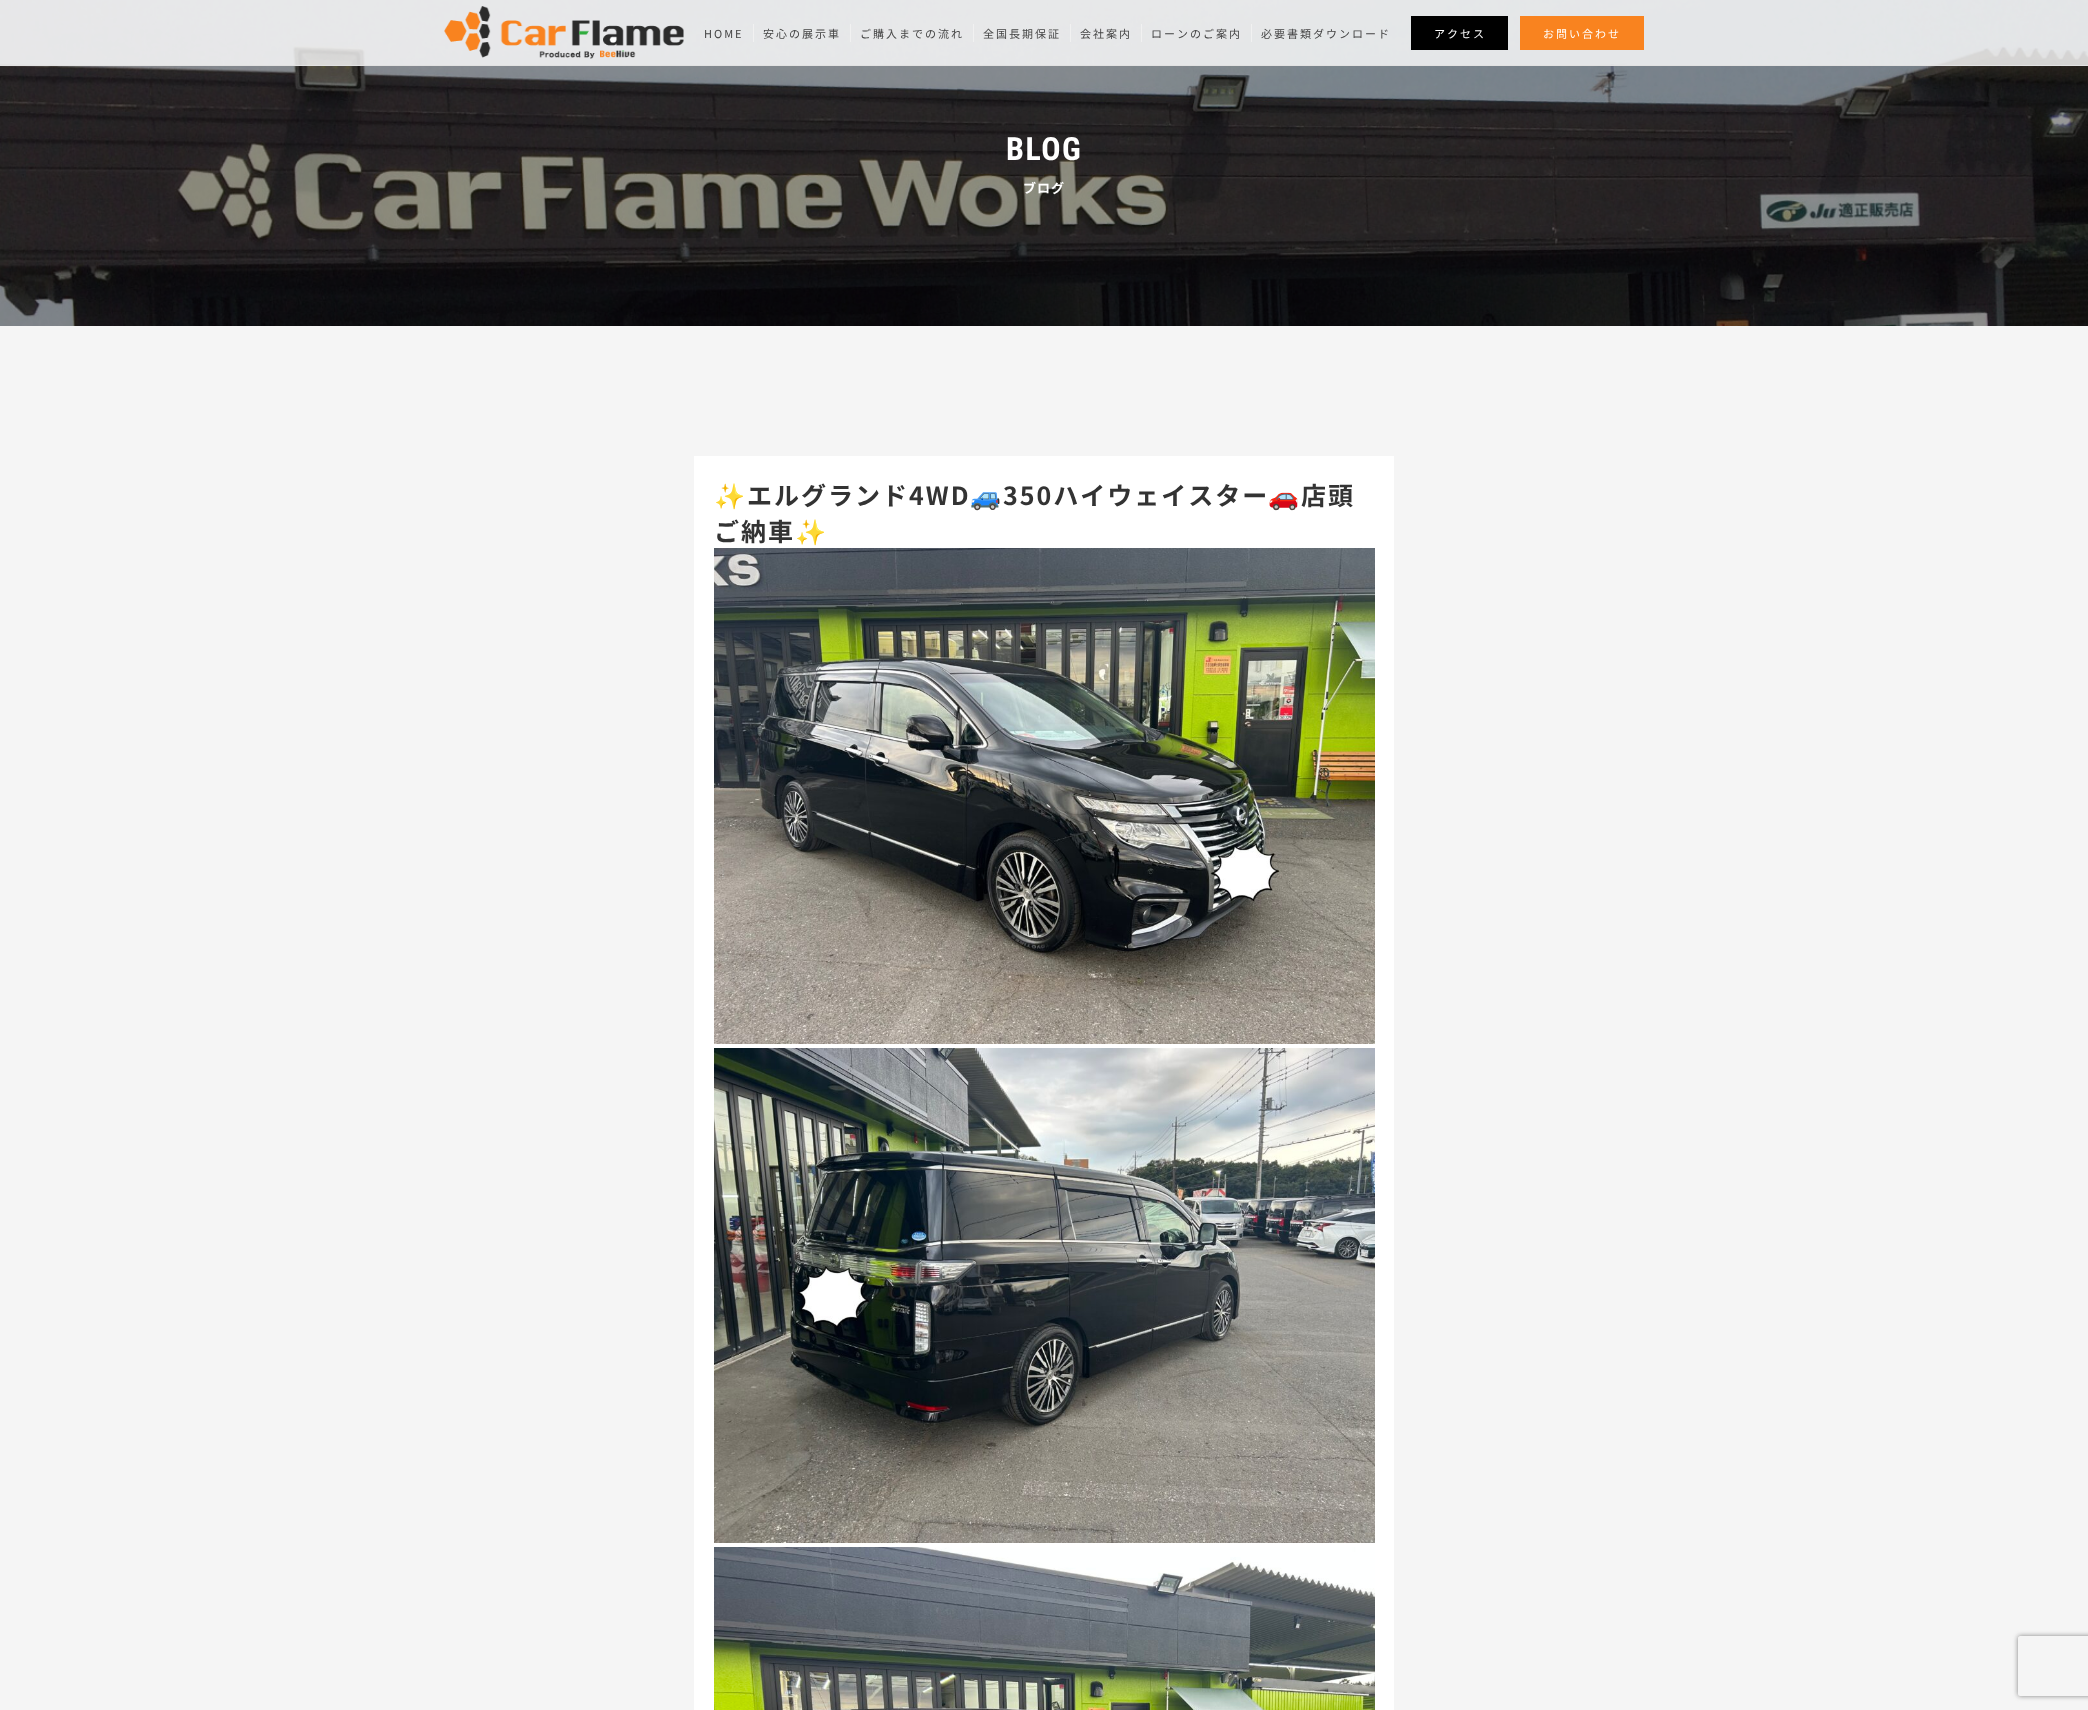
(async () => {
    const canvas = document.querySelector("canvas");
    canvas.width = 2088;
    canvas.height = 1710;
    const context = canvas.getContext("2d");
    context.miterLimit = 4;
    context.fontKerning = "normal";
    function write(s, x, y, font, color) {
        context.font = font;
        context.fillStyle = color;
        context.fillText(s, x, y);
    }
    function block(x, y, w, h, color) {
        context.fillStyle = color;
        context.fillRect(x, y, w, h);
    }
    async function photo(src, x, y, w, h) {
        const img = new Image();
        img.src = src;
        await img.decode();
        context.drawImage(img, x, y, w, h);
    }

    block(0, 0, 2088, 1710, "rgb(245, 245, 245)");
    await photo("media/2.png", 0, 0, 2088, 326);
    block(0, 0, 2088, 65, "rgba(255, 255, 255, 0.8)");
    block(0, 65, 2088, 1, "rgb(226, 226, 226)");
    await photo("media/1.png", 444, 6, 240, 53);
    context.letterSpacing = "2px";
    write("HOME", 704, 38, "11px Noto Sans JP", "rgb(68, 68, 68)");
    block(753, 24, 1, 18, "rgb(241, 241, 241)");
    write("安心の展示車", 763, 38, "11px Noto Sans JP", "rgb(68, 68, 68)");
    block(850, 24, 1, 18, "rgb(241, 241, 241)");
    write("ご購入までの流れ", 860, 38, "11px Noto Sans JP", "rgb(68, 68, 68)");
    block(973, 24, 1, 18, "rgb(241, 241, 241)");
    write("全国長期保証", 983, 38, "11px Noto Sans JP", "rgb(68, 68, 68)");
    block(1070, 24, 1, 18, "rgb(241, 241, 241)");
    write("会社案内", 1080, 38, "11px Noto Sans JP", "rgb(68, 68, 68)");
    block(1141, 24, 1, 18, "rgb(241, 241, 241)");
    write("ローンのご案内", 1151, 38, "11px Noto Sans JP", "rgb(68, 68, 68)");
    block(1251, 24, 1, 18, "rgb(241, 241, 241)");
    write("必要書類ダウンロード", 1261, 38, "11px Noto Sans JP", "rgb(68, 68, 68)");
    block(1411, 16, 97, 34, "rgb(0, 0, 0)");
    write("アクセス", 1434, 38, "11px Noto Sans JP", "rgb(255, 255, 255)");
    block(1520, 16, 124, 34, "rgb(249, 131, 31)");
    write("お問い合わせ", 1543, 38, "11px Noto Sans JP", "rgb(255, 255, 255)");
    context.letterSpacing = "1.5px";
    write("BLOG", 1006, 160, "bold 32px Roboto Condensed", "rgb(255, 255, 255)");
    context.letterSpacing = "1px";
    write("ブログ", 1023, 193, "bold 13px Noto Sans JP", "rgb(255, 255, 255)");
    block(694, 456, 700, 1254, "rgb(255, 255, 255)");
    context.letterSpacing = "2px";
    write("✨", 714, 505, "bold 25px Noto Color Emoji", "rgb(51, 51, 51)");
    write("エルグランド4WD", 747, 505, "bold 25px Noto Sans JP", "rgb(51, 51, 51)");
    write("🚙", 970, 505, "bold 25px Noto Color Emoji", "rgb(51, 51, 51)");
    write("350ハイウェイスター", 1003, 505, "bold 25px Noto Sans JP", "rgb(51, 51, 51)");
    write("🚗", 1268, 505, "bold 25px Noto Color Emoji", "rgb(51, 51, 51)");
    write("店頭", 1301, 505, "bold 25px Noto Sans JP", "rgb(51, 51, 51)");
    write("ご納車", 714, 541, "bold 25px Noto Sans JP", "rgb(51, 51, 51)");
    write("✨", 795, 541, "bold 25px Noto Color Emoji", "rgb(51, 51, 51)");
    await photo("media/3.png", 714, 548, 661, 496);
    await photo("media/4.png", 714, 1048, 661, 495);
    await photo("media/5.png", 714, 1547, 661, 163);
    context.save();
    context.beginPath();
    context.moveTo(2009, 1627);
    context.lineTo(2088, 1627);
    context.lineTo(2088, 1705);
    context.lineTo(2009, 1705);
    context.closePath();
    context.moveTo(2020, 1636);
    context.lineTo(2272, 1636);
    context.bezierCurveTo(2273, 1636, 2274, 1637, 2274, 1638);
    context.lineTo(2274, 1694);
    context.bezierCurveTo(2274, 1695, 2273, 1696, 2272, 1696);
    context.lineTo(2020, 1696);
    context.bezierCurveTo(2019, 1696, 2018, 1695, 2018, 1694);
    context.lineTo(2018, 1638);
    context.bezierCurveTo(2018, 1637, 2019, 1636, 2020, 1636);
    context.closePath();
    context.clip("evenodd");
    context.fillStyle = "rgb(128, 128, 128)";
    context.filter = "blur(2.5px)";
    context.beginPath();
    context.roundRect(2018, 1636, 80, 60, 2);
    context.fill();
    context.filter = "none";
    context.restore();
})();
